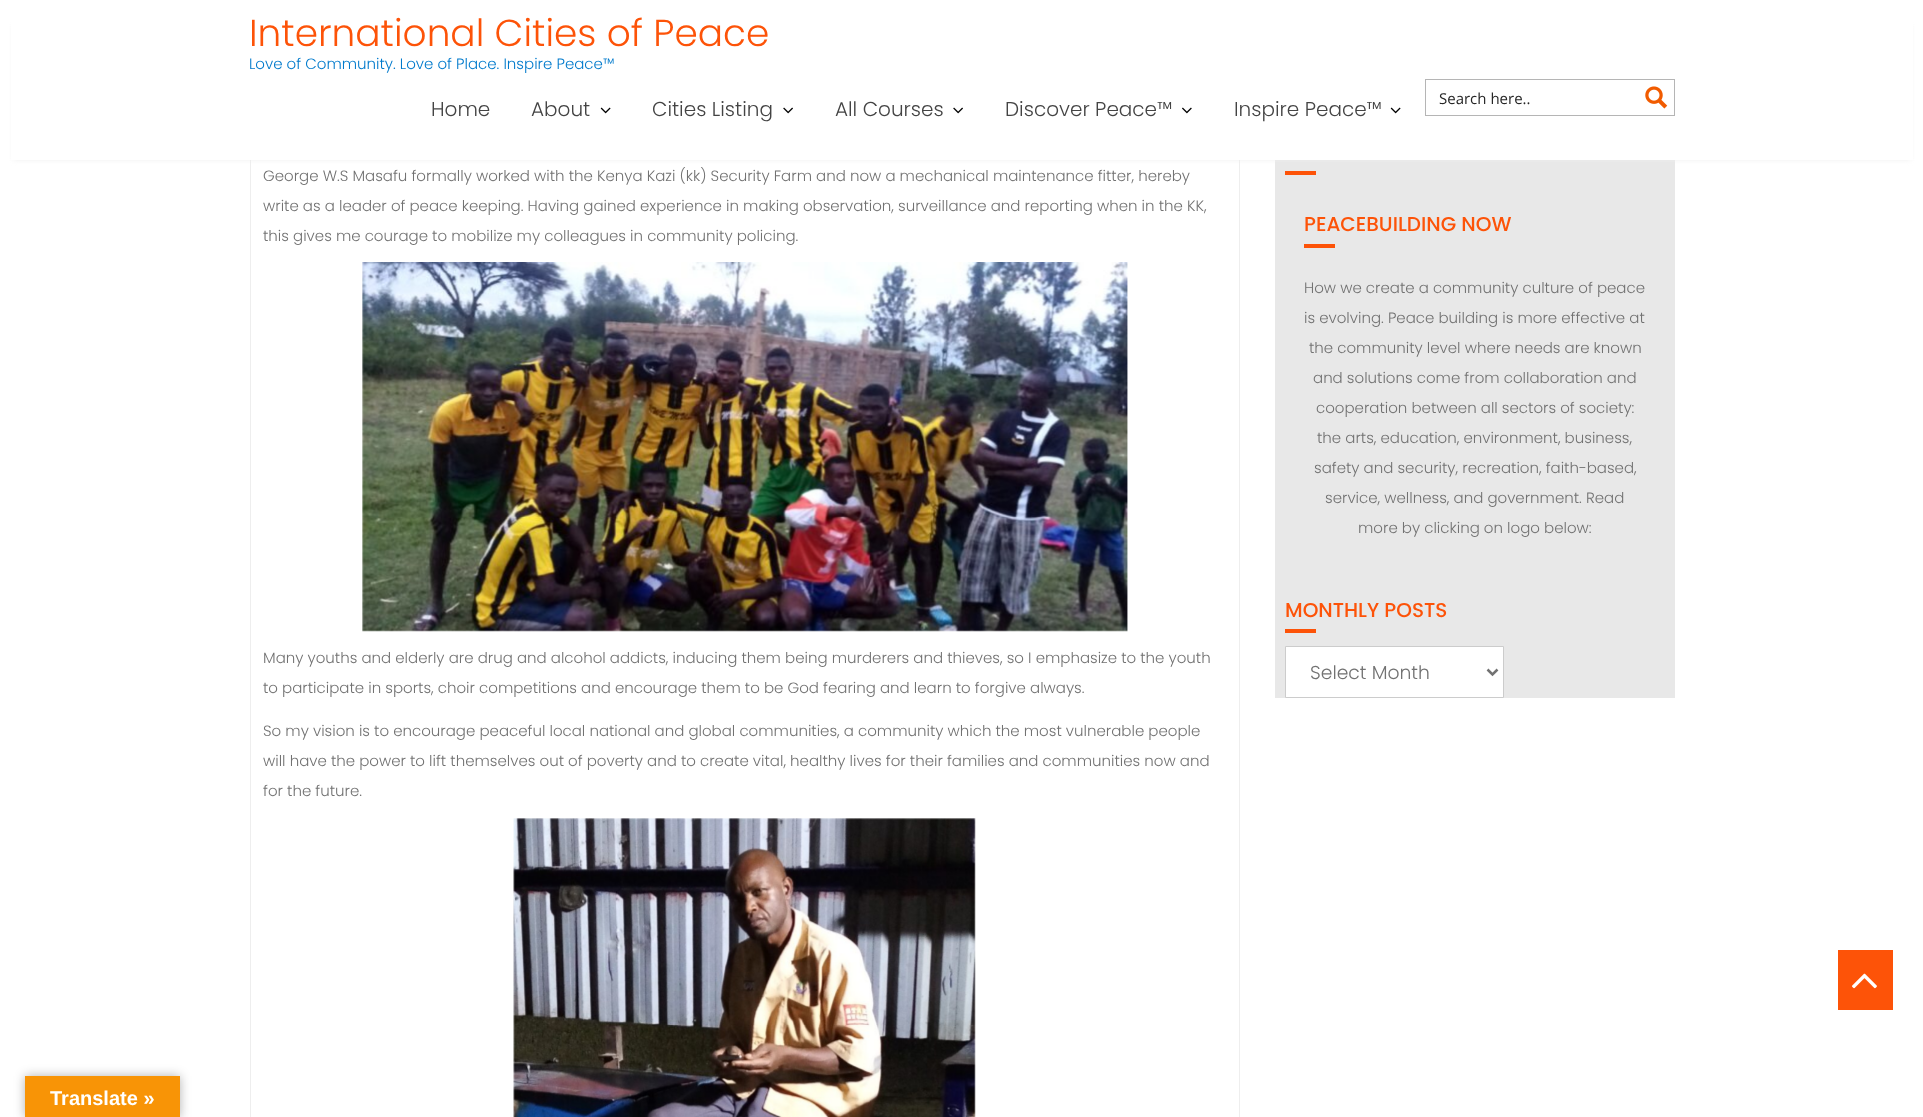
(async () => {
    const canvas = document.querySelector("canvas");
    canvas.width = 1923;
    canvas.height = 1117;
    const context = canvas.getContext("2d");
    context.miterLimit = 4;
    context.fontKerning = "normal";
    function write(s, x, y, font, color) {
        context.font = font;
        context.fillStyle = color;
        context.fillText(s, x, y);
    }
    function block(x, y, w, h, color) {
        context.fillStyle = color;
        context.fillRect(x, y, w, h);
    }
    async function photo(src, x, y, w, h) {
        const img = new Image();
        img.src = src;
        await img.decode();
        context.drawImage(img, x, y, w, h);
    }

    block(0, 0, 1923, 1117, "rgb(255, 255, 255)");
    context.strokeStyle = "rgb(238, 238, 238)";
    context.strokeRect(250.5, -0.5, 989, 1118);
    block(1275, 160, 400, 538, "rgb(232, 232, 232)");
    context.fillStyle = "rgba(238, 238, 238, 0.9)";
    context.filter = "blur(2.5px)";
    context.beginPath();
    context.rect(13, 25, 1898, 135);
    context.fill();
    context.filter = "none";
    block(11, 0, 1902, 160, "rgb(255, 255, 255)");
    write("International Cities of Peace", 249, 46, "300 37.5px Poppins", "rgb(253, 83, 8)");
    write("Love of Community. Love of Place. Inspire Peace™", 249, 69, "300 15px Poppins", "rgb(0, 122, 204)");
    context.strokeStyle = "rgb(181, 181, 181)";
    context.strokeRect(1425.5, 79.5, 249, 36);
    write("Search here..", 1439, 104, "15px Open Sans", "rgb(38, 38, 38)");
    await photo("media/1.png", 1645, 86, 23, 23);
    write("Home", 431, 116, "300 20px Poppins", "rgb(68, 68, 68)");
    write("About", 531, 116, "300 20px Poppins", "rgb(68, 68, 68)");
    await photo("media/2.png", 600, 107, 11, 7);
    write("Cities Listing", 652, 116, "300 20px Poppins", "rgb(68, 68, 68)");
    await photo("media/3.png", 783, 107, 10, 7);
    write("All Courses", 835, 116, "300 20px Poppins", "rgb(68, 68, 68)");
    await photo("media/3.png", 953, 107, 10, 7);
    write("Discover Peace™", 1005, 116, "300 20px Poppins", "rgb(68, 68, 68)");
    await photo("media/4.png", 1182, 107, 10, 7);
    write("Inspire Peace™", 1234, 116, "300 20px Poppins", "rgb(68, 68, 68)");
    await photo("media/2.png", 1390, 107, 11, 7);
    write("George W.S Masafu formally worked with the Kenya Kazi (kk) Security Farm and now a mechanical maintenance fitter, hereby", 263, 181, "300 15px Poppins", "rgb(114, 114, 114)");
    write("write as a leader of peace keeping. Having gained experience in making observation, surveillance and reporting when in the KK,", 263, 211, "300 15px Poppins", "rgb(114, 114, 114)");
    write("this gives me courage to mobilize my colleagues in community policing.", 263, 241, "300 15px Poppins", "rgb(114, 114, 114)");
    await photo("media/5.png", 362, 262, 766, 370);
    write("Many youths and elderly are drug and alcohol addicts, inducing them being murderers and thieves, so I emphasize to the youth", 263, 663, "300 15px Poppins", "rgb(114, 114, 114)");
    write("to participate in sports, choir competitions and encourage them to be God fearing and learn to forgive always.", 263, 693, "300 15px Poppins", "rgb(114, 114, 114)");
    write("So my vision is to encourage peaceful local national and global communities, a community which the most vulnerable people", 263, 736, "300 15px Poppins", "rgb(114, 114, 114)");
    write("will have the power to lift themselves out of poverty and to create vital, healthy lives for their families and communities now and", 263, 766, "300 15px Poppins", "rgb(114, 114, 114)");
    write("for the future.", 263, 796, "300 15px Poppins", "rgb(114, 114, 114)");
    await photo("media/6.png", 513, 818, 463, 299);
    block(1285, 171, 31, 4, "rgb(253, 83, 8)");
    write("PEACEBUILDING NOW", 1304, 231, "500 20px Poppins", "rgb(253, 83, 8)");
    block(1304, 244, 31, 4, "rgb(253, 83, 8)");
    write("How we create a community culture of peace", 1304, 293, "300 15px Poppins", "rgb(114, 114, 114)");
    write("is evolving. Peace building is more effective at", 1304, 323, "300 15px Poppins", "rgb(114, 114, 114)");
    write("the community level where needs are known", 1309, 353, "300 15px Poppins", "rgb(114, 114, 114)");
    write("and solutions come from collaboration and", 1313, 383, "300 15px Poppins", "rgb(114, 114, 114)");
    write("cooperation between all sectors of society:", 1316, 413, "300 15px Poppins", "rgb(114, 114, 114)");
    write("the arts, education, environment, business,", 1317, 443, "300 15px Poppins", "rgb(114, 114, 114)");
    write("safety and security, recreation, faith-based,", 1314, 473, "300 15px Poppins", "rgb(114, 114, 114)");
    write("service, wellness, and government. Read", 1325, 503, "300 15px Poppins", "rgb(114, 114, 114)");
    write("more by clicking on logo below:", 1358, 533, "300 15px Poppins", "rgb(114, 114, 114)");
    write("MONTHLY POSTS", 1285, 617, "500 20px Poppins", "rgb(253, 83, 8)");
    block(1285, 629, 31, 4, "rgb(253, 83, 8)");
    context.fillStyle = "rgb(255, 255, 255)";
    context.beginPath();
    context.rect(1285.5, 646.5, 218, 51);
    context.fill();
    context.strokeStyle = "rgb(204, 204, 204)";
    context.stroke();
    context.beginPath();
    context.moveTo(1487.5, 669.5);
    context.lineTo(1492.5, 674.5);
    context.lineTo(1497.5, 669.5);
    context.strokeStyle = "rgb(114, 114, 114)";
    context.lineWidth = 2.5;
    context.stroke();
    write("Select Month", 1310, 679, "300 18.75px Poppins", "rgb(114, 114, 114)");
    block(1838, 950, 55, 60, "rgb(253, 83, 8)");
    await photo("media/7.png", 1852, 973, 25, 16);
    context.fillStyle = "rgba(0, 0, 0, 0.3)";
    context.filter = "blur(5.5px)";
    context.beginPath();
    context.rect(25, 1076, 155, 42);
    context.fill();
    context.filter = "none";
    block(25, 1076, 155, 41, "rgb(248, 148, 6)");
    write("Translate »", 50, 1105, "bold 20px Liberation Sans", "rgb(255, 255, 255)");
})();
